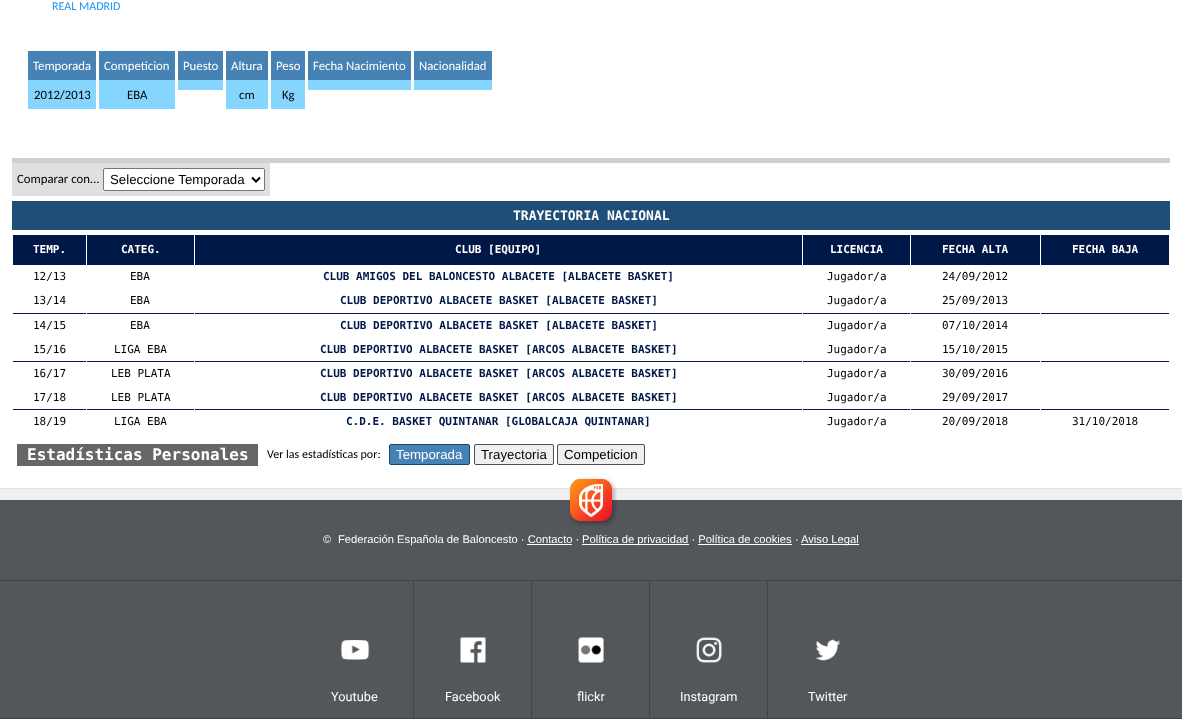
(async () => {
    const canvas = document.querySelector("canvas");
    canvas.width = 1182;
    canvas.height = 719;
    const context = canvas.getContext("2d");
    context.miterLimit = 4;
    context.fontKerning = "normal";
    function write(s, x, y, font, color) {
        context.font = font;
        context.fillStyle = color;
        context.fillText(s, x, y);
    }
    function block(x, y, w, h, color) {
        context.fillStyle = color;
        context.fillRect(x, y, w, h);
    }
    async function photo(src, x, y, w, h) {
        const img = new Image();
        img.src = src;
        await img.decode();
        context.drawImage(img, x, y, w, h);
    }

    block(0, 0, 1182, 719, "rgb(83, 86, 90)");
    block(0, 0, 1182, 488, "rgb(255, 255, 255)");
    block(12, 158, 1158, 5, "rgb(208, 208, 208)");
    write("REAL MADRID", 52, 10, "12px Carlito", "rgb(33, 150, 243)");
    block(28, 51, 68, 29, "rgb(70, 130, 180)");
    write("Temporada", 33, 70, "12.75px Carlito", "rgb(255, 255, 255)");
    block(28, 80, 68, 29, "rgb(133, 213, 255)");
    write("2012/2013", 34, 99, "12.75px Carlito", "rgb(0, 0, 0)");
    block(99, 51, 76, 29, "rgb(70, 130, 180)");
    write("Competicion", 104, 70, "12.75px Carlito", "rgb(255, 255, 255)");
    block(99, 80, 76, 29, "rgb(133, 213, 255)");
    write("EBA", 127, 99, "12.75px Carlito", "rgb(0, 0, 0)");
    block(178, 51, 45, 29, "rgb(70, 130, 180)");
    write("Puesto", 183, 70, "12.75px Carlito", "rgb(255, 255, 255)");
    block(178, 80, 45, 10, "rgb(133, 213, 255)");
    block(226, 51, 42, 29, "rgb(70, 130, 180)");
    write("Altura", 231, 70, "12.75px Carlito", "rgb(255, 255, 255)");
    block(226, 80, 42, 29, "rgb(133, 213, 255)");
    write("cm", 239, 99, "12.75px Carlito", "rgb(0, 0, 0)");
    block(271, 51, 34, 29, "rgb(70, 130, 180)");
    write("Peso", 276, 70, "12.75px Carlito", "rgb(255, 255, 255)");
    block(271, 80, 34, 29, "rgb(133, 213, 255)");
    write("Kg", 282, 99, "12.75px Carlito", "rgb(0, 0, 0)");
    block(308, 51, 103, 29, "rgb(70, 130, 180)");
    write("Fecha Nacimiento", 313, 70, "12.75px Carlito", "rgb(255, 255, 255)");
    block(308, 80, 103, 10, "rgb(133, 213, 255)");
    block(414, 51, 78, 29, "rgb(70, 130, 180)");
    write("Nacionalidad", 419, 70, "12.75px Carlito", "rgb(255, 255, 255)");
    block(414, 80, 78, 10, "rgb(133, 213, 255)");
    block(12, 163, 258, 33, "rgb(224, 224, 224)");
    write("Comparar con...", 17, 183, "12.75px Carlito", "rgb(0, 0, 0)");
    context.fillStyle = "rgb(255, 255, 255)";
    context.beginPath();
    context.roundRect(103.5, 168.5, 161, 22, 1.5);
    context.fill();
    context.strokeStyle = "rgb(118, 118, 118)";
    context.stroke();
    context.beginPath();
    context.moveTo(252, 177.5);
    context.lineTo(256, 181.5);
    context.lineTo(260, 177.5);
    context.strokeStyle = "rgb(0, 0, 0)";
    context.lineWidth = 2;
    context.stroke();
    write("Seleccione Temporada", 110, 184, "13.25px Liberation Sans", "rgb(0, 0, 0)");
    block(12, 201, 1158, 29, "rgb(31, 78, 120)");
    write("TRAYECTORIA NACIONAL", 513, 220, "bold 13px DejaVu Sans Mono", "rgb(255, 255, 255)");
    block(13, 235, 73, 29, "rgb(0, 24, 72)");
    write("TEMP.", 33, 253, "bold 11px DejaVu Sans Mono", "rgb(255, 255, 255)");
    block(87, 235, 107, 29, "rgb(0, 24, 72)");
    write("CATEG.", 121, 253, "bold 11px DejaVu Sans Mono", "rgb(255, 255, 255)");
    block(195, 235, 607, 29, "rgb(0, 24, 72)");
    write("CLUB [EQUIPO]", 455, 253, "bold 11px DejaVu Sans Mono", "rgb(255, 255, 255)");
    block(803, 235, 107, 29, "rgb(0, 24, 72)");
    write("LICENCIA", 830, 253, "bold 11px DejaVu Sans Mono", "rgb(255, 255, 255)");
    block(911, 235, 129, 29, "rgb(0, 24, 72)");
    write("FECHA ALTA", 942, 253, "bold 11px DejaVu Sans Mono", "rgb(255, 255, 255)");
    block(1041, 235, 128, 30, "rgb(0, 24, 72)");
    write("FECHA BAJA", 1072, 253, "bold 11px DejaVu Sans Mono", "rgb(255, 255, 255)");
    block(12, 264, 1029, 1, "rgb(0, 24, 72)");
    block(86, 264, 1, 1, "rgb(255, 255, 255)");
    block(12, 264, 1, 1, "rgb(255, 255, 255)");
    write("12/13", 33, 280, "11px DejaVu Sans Mono", "rgb(0, 0, 0)");
    block(194, 264, 1, 1, "rgb(255, 255, 255)");
    write("EBA", 130, 280, "11px DejaVu Sans Mono", "rgb(0, 0, 0)");
    block(802, 264, 1, 1, "rgb(255, 255, 255)");
    write("CLUB AMIGOS DEL BALONCESTO ALBACETE [ALBACETE BASKET]", 323, 280, "bold 11px DejaVu Sans Mono", "rgb(0, 24, 72)");
    block(910, 264, 1, 1, "rgb(255, 255, 255)");
    write("Jugador/a", 827, 280, "11px DejaVu Sans Mono", "rgb(0, 0, 0)");
    block(1040, 264, 1, 1, "rgb(255, 255, 255)");
    write("24/09/2012", 942, 280, "11px DejaVu Sans Mono", "rgb(0, 0, 0)");
    write("13/14", 33, 304, "11px DejaVu Sans Mono", "rgb(0, 0, 0)");
    write("EBA", 130, 304, "11px DejaVu Sans Mono", "rgb(0, 0, 0)");
    write("CLUB DEPORTIVO ALBACETE BASKET [ALBACETE BASKET]", 340, 304, "bold 11px DejaVu Sans Mono", "rgb(0, 24, 72)");
    write("Jugador/a", 827, 304, "11px DejaVu Sans Mono", "rgb(0, 0, 0)");
    write("25/09/2013", 942, 304, "11px DejaVu Sans Mono", "rgb(0, 0, 0)");
    block(12, 313, 1158, 1, "rgb(0, 24, 72)");
    block(1169, 313, 1, 1, "rgb(255, 255, 255)");
    block(86, 313, 1, 1, "rgb(255, 255, 255)");
    block(12, 313, 1, 1, "rgb(255, 255, 255)");
    write("14/15", 33, 329, "11px DejaVu Sans Mono", "rgb(0, 0, 0)");
    block(194, 313, 1, 1, "rgb(255, 255, 255)");
    write("EBA", 130, 329, "11px DejaVu Sans Mono", "rgb(0, 0, 0)");
    block(802, 313, 1, 1, "rgb(255, 255, 255)");
    write("CLUB DEPORTIVO ALBACETE BASKET [ALBACETE BASKET]", 340, 329, "bold 11px DejaVu Sans Mono", "rgb(0, 24, 72)");
    block(910, 313, 1, 1, "rgb(255, 255, 255)");
    write("Jugador/a", 827, 329, "11px DejaVu Sans Mono", "rgb(0, 0, 0)");
    block(1040, 313, 1, 1, "rgb(255, 255, 255)");
    write("07/10/2014", 942, 329, "11px DejaVu Sans Mono", "rgb(0, 0, 0)");
    write("15/16", 33, 353, "11px DejaVu Sans Mono", "rgb(0, 0, 0)");
    write("LIGA EBA", 114, 353, "11px DejaVu Sans Mono", "rgb(0, 0, 0)");
    write("CLUB DEPORTIVO ALBACETE BASKET [ARCOS ALBACETE BASKET]", 320, 353, "bold 11px DejaVu Sans Mono", "rgb(0, 24, 72)");
    write("Jugador/a", 827, 353, "11px DejaVu Sans Mono", "rgb(0, 0, 0)");
    write("15/10/2015", 942, 353, "11px DejaVu Sans Mono", "rgb(0, 0, 0)");
    block(12, 361, 1158, 1, "rgb(0, 24, 72)");
    block(1169, 361, 1, 1, "rgb(255, 255, 255)");
    block(86, 361, 1, 1, "rgb(255, 255, 255)");
    block(12, 361, 1, 1, "rgb(255, 255, 255)");
    write("16/17", 33, 377, "11px DejaVu Sans Mono", "rgb(0, 0, 0)");
    block(194, 361, 1, 1, "rgb(255, 255, 255)");
    write("LEB PLATA", 111, 377, "11px DejaVu Sans Mono", "rgb(0, 0, 0)");
    block(802, 361, 1, 1, "rgb(255, 255, 255)");
    write("CLUB DEPORTIVO ALBACETE BASKET [ARCOS ALBACETE BASKET]", 320, 377, "bold 11px DejaVu Sans Mono", "rgb(0, 24, 72)");
    block(910, 361, 1, 1, "rgb(255, 255, 255)");
    write("Jugador/a", 827, 377, "11px DejaVu Sans Mono", "rgb(0, 0, 0)");
    block(1040, 361, 1, 1, "rgb(255, 255, 255)");
    write("30/09/2016", 942, 377, "11px DejaVu Sans Mono", "rgb(0, 0, 0)");
    write("17/18", 33, 401, "11px DejaVu Sans Mono", "rgb(0, 0, 0)");
    write("LEB PLATA", 111, 401, "11px DejaVu Sans Mono", "rgb(0, 0, 0)");
    write("CLUB DEPORTIVO ALBACETE BASKET [ARCOS ALBACETE BASKET]", 320, 401, "bold 11px DejaVu Sans Mono", "rgb(0, 24, 72)");
    write("Jugador/a", 827, 401, "11px DejaVu Sans Mono", "rgb(0, 0, 0)");
    write("29/09/2017", 942, 401, "11px DejaVu Sans Mono", "rgb(0, 0, 0)");
    block(12, 409, 1158, 1, "rgb(0, 24, 72)");
    block(86, 409, 1, 1, "rgb(255, 255, 255)");
    block(12, 409, 1, 1, "rgb(255, 255, 255)");
    write("18/19", 33, 425, "11px DejaVu Sans Mono", "rgb(0, 0, 0)");
    block(194, 409, 1, 1, "rgb(255, 255, 255)");
    write("LIGA EBA", 114, 425, "11px DejaVu Sans Mono", "rgb(0, 0, 0)");
    block(802, 409, 1, 1, "rgb(255, 255, 255)");
    write("C.D.E. BASKET QUINTANAR [GLOBALCAJA QUINTANAR]", 346, 425, "bold 11px DejaVu Sans Mono", "rgb(0, 24, 72)");
    block(910, 409, 1, 1, "rgb(255, 255, 255)");
    write("Jugador/a", 827, 425, "11px DejaVu Sans Mono", "rgb(0, 0, 0)");
    block(1040, 409, 1, 1, "rgb(255, 255, 255)");
    write("20/09/2018", 942, 425, "11px DejaVu Sans Mono", "rgb(0, 0, 0)");
    block(1169, 409, 1, 1, "rgb(255, 255, 255)");
    write("31/10/2018", 1072, 425, "11px DejaVu Sans Mono", "rgb(0, 0, 0)");
    block(17, 444, 241, 22, "rgb(102, 102, 102)");
    write("Estadísticas Personales", 27, 460, "bold 16px DejaVu Sans Mono", "rgb(255, 255, 255)");
    write("Ver las estadísticas por:", 267, 458, "12px Carlito", "rgb(0, 0, 0)");
    context.fillStyle = "rgb(70, 130, 180)";
    context.beginPath();
    context.roundRect(389.5, 444.5, 80, 20, 1.5);
    context.fill();
    context.strokeStyle = "rgb(20, 74, 107)";
    context.lineWidth = 1;
    context.stroke();
    write("Temporada", 396, 459, "13.25px Liberation Sans", "rgb(255, 255, 255)");
    context.fillStyle = "rgb(239, 239, 239)";
    context.beginPath();
    context.roundRect(474.5, 444.5, 79, 20, 1.5);
    context.fill();
    context.strokeStyle = "rgb(79, 79, 79)";
    context.stroke();
    write("Trayectoria", 481, 459, "13.25px Liberation Sans", "rgb(0, 0, 0)");
    context.fillStyle = "rgb(239, 239, 239)";
    context.beginPath();
    context.roundRect(557.5, 444.5, 87, 20, 1.5);
    context.fill();
    context.stroke();
    write("Competicion", 564, 459, "13.25px Liberation Sans", "rgb(0, 0, 0)");
    block(0, 489, 1182, 11, "rgb(240, 240, 240)");
    block(0, 488, 1182, 1, "rgb(224, 224, 224)");
    await photo("media/1.png", 569, 477, 48, 49);
    write("©", 323, 543, "11.2px Liberation Sans", "rgb(255, 255, 255)");
    write("Federación Española de Baloncesto · Contacto ·", 338, 543, "11.2px Liberation Sans", "rgb(255, 255, 255)");
    block(582, 544, 107, 1, "rgb(255, 255, 255)");
    write("Política de privacidad · Política de cookies", 582, 543, "11.2px Liberation Sans", "rgb(255, 255, 255)");
    write("·", 795, 543, "11.2px Liberation Sans", "rgb(255, 255, 255)");
    block(801, 544, 58, 1, "rgb(255, 255, 255)");
    write("Aviso Legal", 801, 543, "11.2px Liberation Sans", "rgb(255, 255, 255)");
    block(527, 544, 45, 1, "rgb(255, 255, 255)");
    block(698, 544, 94, 1, "rgb(255, 255, 255)");
    block(0, 580, 1182, 1, "rgb(68, 68, 68)");
    block(0, 718, 1182, 1, "rgb(68, 68, 68)");
    await photo("media/2.png", 340, 640, 30, 20);
    write("Youtube", 331, 701, "12.75px Roboto", "rgb(255, 255, 255)");
    await photo("media/3.png", 460, 637, 26, 26);
    block(413, 581, 1, 137, "rgb(68, 68, 68)");
    write("Facebook", 445, 701, "12.75px Roboto", "rgb(255, 255, 255)");
    await photo("media/4.png", 578, 637, 26, 26);
    block(531, 581, 1, 137, "rgb(68, 68, 68)");
    write("flickr", 577, 701, "12.75px Roboto", "rgb(255, 255, 255)");
    await photo("media/5.png", 696, 637, 26, 26);
    block(649, 581, 1, 137, "rgb(68, 68, 68)");
    write("Instagram", 680, 701, "12.75px Roboto", "rgb(255, 255, 255)");
    await photo("media/6.png", 815, 639, 26, 22);
    block(767, 581, 1, 137, "rgb(68, 68, 68)");
    write("Twitter", 808, 701, "12.75px Roboto", "rgb(255, 255, 255)");
})();
